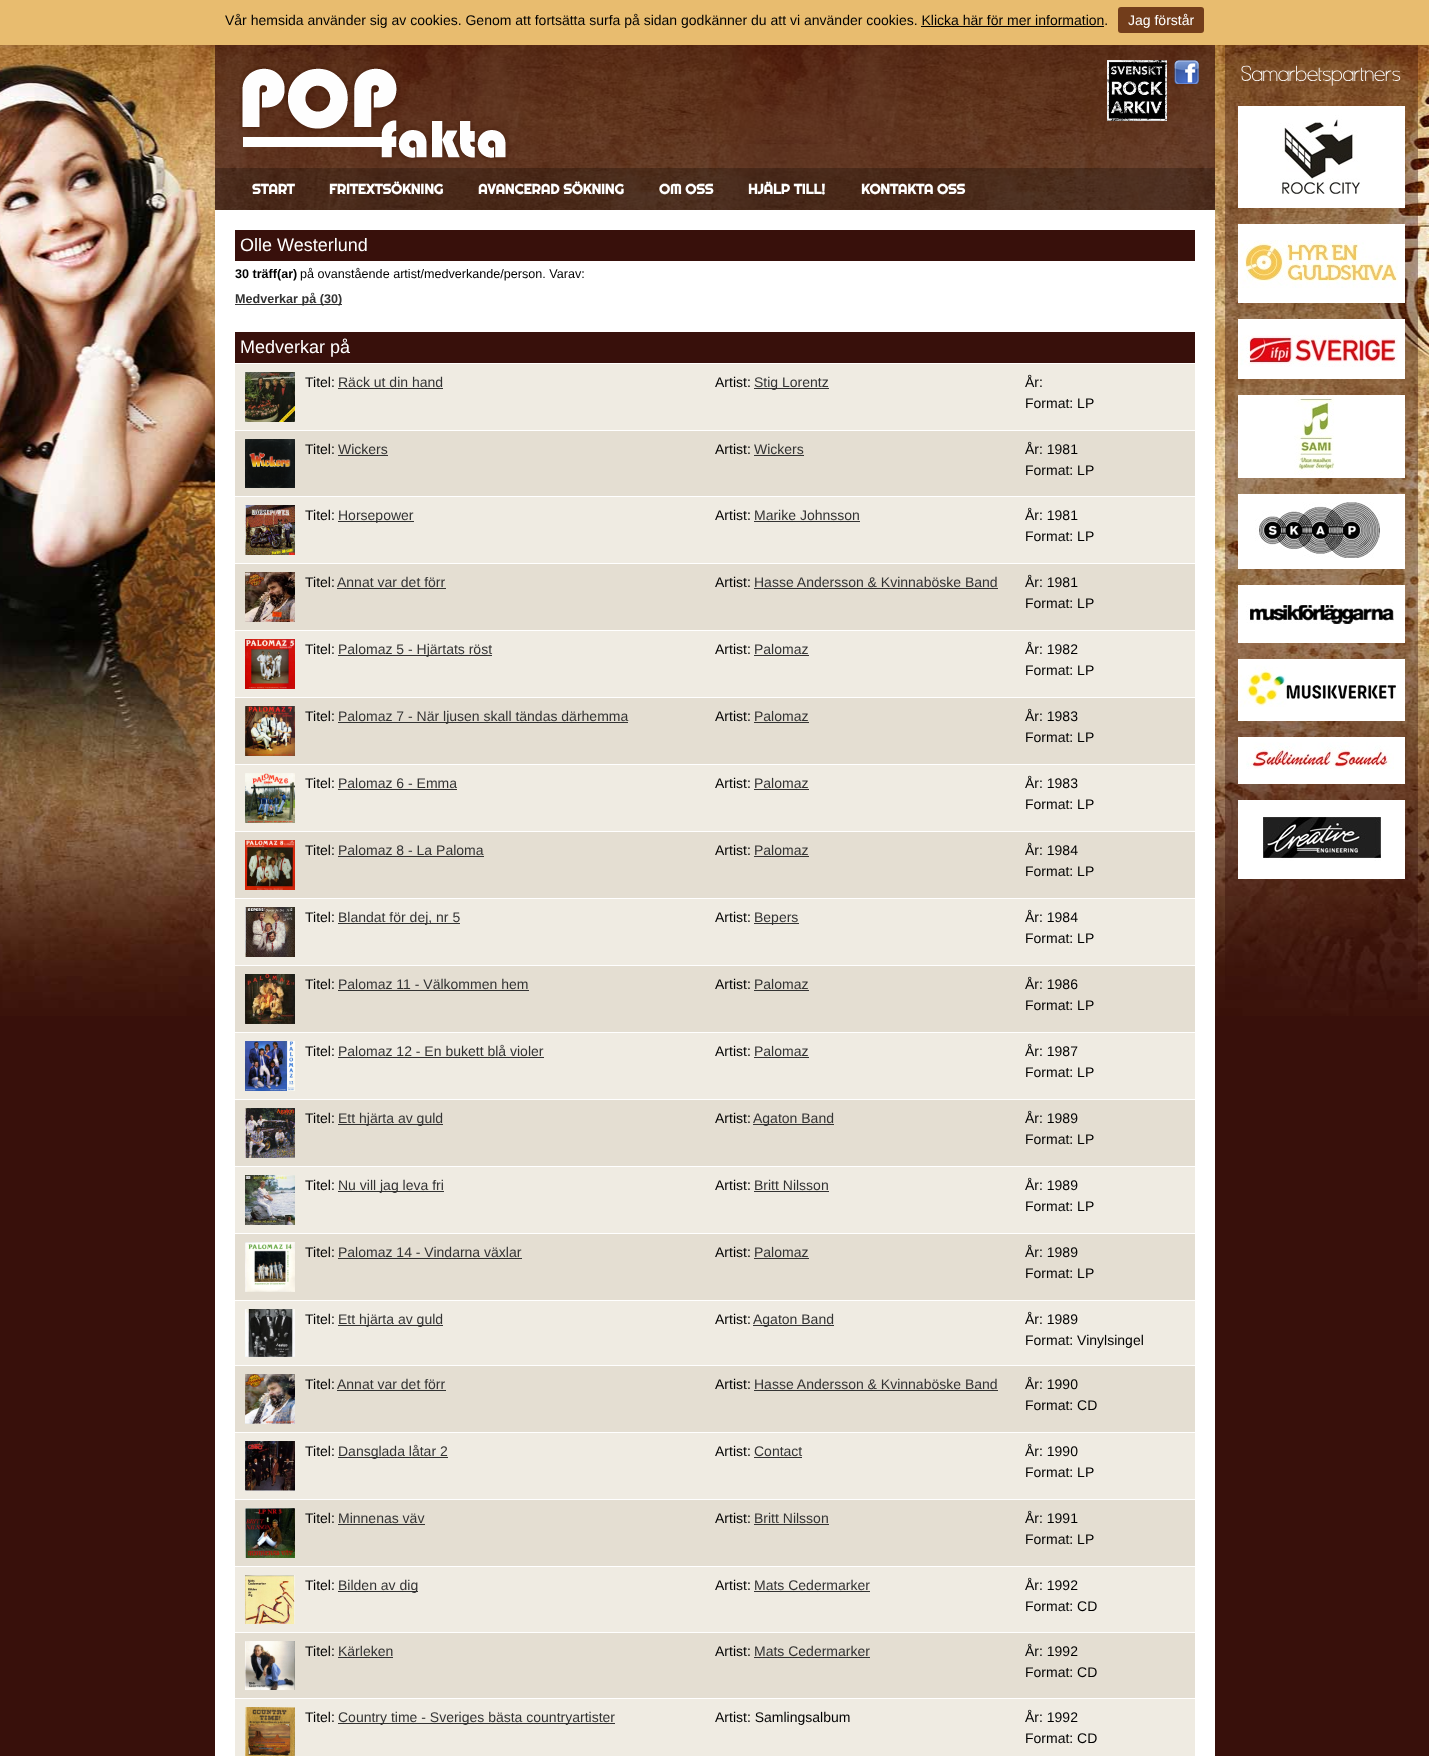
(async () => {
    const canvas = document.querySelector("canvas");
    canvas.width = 1429;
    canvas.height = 1756;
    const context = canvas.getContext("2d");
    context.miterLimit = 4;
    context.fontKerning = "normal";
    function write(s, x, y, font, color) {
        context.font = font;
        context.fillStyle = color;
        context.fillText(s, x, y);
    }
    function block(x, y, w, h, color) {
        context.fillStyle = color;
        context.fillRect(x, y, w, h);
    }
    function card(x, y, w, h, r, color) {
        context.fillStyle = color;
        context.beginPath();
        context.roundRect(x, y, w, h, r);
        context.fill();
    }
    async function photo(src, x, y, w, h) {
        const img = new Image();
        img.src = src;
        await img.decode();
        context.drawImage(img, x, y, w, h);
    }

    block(0, 0, 1429, 1756, "rgb(56, 16, 11)");
    await photo("media/1.png", 0, 45, 1429, 971);
    block(0, 0, 1429, 45, "rgb(232, 188, 111)");
    write("Vår hemsida använder sig av cookies. Genom att fortsätta surfa på sidan godkänner du att vi använder cookies. Klicka här för mer information.", 225, 25, "14px Liberation Sans", "rgb(0, 0, 0)");
    block(921, 26, 183, 1, "rgb(0, 0, 0)");
    card(1118, 7, 86, 26, 3, "rgb(114, 61, 27)");
    write("Jag förstår", 1128, 25, "14px Liberation Sans", "rgb(255, 255, 255)");
    block(215, 45, 1000, 165, "rgba(56, 16, 11, 0.7)");
    await photo("media/2.png", 239, 66, 270, 95);
    await photo("media/3.png", 1107, 60, 60, 61);
    await photo("media/4.png", 1174, 60, 26, 24);
    await photo("media/5.png", 215, 168, 1000, 42);
    write("START", 252, 194, "bold 14px Righteous", "rgb(255, 255, 255)");
    write("FRITEXTSÖKNING", 329, 194, "bold 14px Righteous", "rgb(255, 255, 255)");
    write("AVANCERAD SÖKNING", 478, 194, "bold 14px Righteous", "rgb(255, 255, 255)");
    write("OM OSS", 659, 194, "bold 14px Righteous", "rgb(255, 255, 255)");
    write("HJÄLP TILL!", 748, 194, "bold 14px Righteous", "rgb(255, 255, 255)");
    write("KONTAKTA OSS", 861, 194, "bold 14px Righteous", "rgb(255, 255, 255)");
    block(1225, 45, 193, 955, "rgba(55, 15, 10, 0.4)");
    await photo("media/6.png", 1241, 65, 160, 21);
    block(1238, 106, 167, 102, "rgb(255, 255, 255)");
    await photo("media/7.png", 1280, 115, 80, 80);
    block(1238, 224, 167, 79, "rgb(255, 255, 255)");
    await photo("media/8.png", 1238, 240, 160, 48);
    block(1238, 319, 167, 60, "rgb(255, 255, 255)");
    await photo("media/9.png", 1240, 335, 158, 32);
    block(1238, 395, 167, 83, "rgb(255, 255, 255)");
    await photo("media/10.png", 1294, 395, 41, 80);
    block(1238, 494, 167, 75, "rgb(255, 255, 255)");
    await photo("media/11.png", 1255, 502, 125, 56);
    block(1238, 585, 167, 58, "rgb(255, 255, 255)");
    await photo("media/12.png", 1246, 602, 148, 22);
    block(1238, 659, 167, 62, "rgb(255, 255, 255)");
    await photo("media/13.png", 1238, 665, 160, 42);
    block(1238, 737, 167, 47, "rgb(255, 255, 255)");
    await photo("media/14.png", 1246, 742, 148, 27);
    block(1238, 800, 167, 79, "rgb(255, 255, 255)");
    await photo("media/15.png", 1263, 817, 118, 44);
    block(215, 210, 1000, 1546, "rgb(255, 255, 255)");
    block(235, 230, 960, 31, "rgb(56, 16, 11)");
    write("Olle Westerlund", 240, 251, "18px Liberation Sans", "rgb(255, 255, 255)");
    write("30 träff(ar)", 235, 278, "bold 12.6px Liberation Sans", "rgb(0, 0, 0)");
    write("på ovanstående artist/medverkande/person. Varav:", 300, 278, "12.6px Liberation Sans", "rgb(0, 0, 0)");
    block(235, 304, 107, 1, "rgb(51, 51, 51)");
    write("Medverkar på (30)", 235, 303, "bold 12.6px Liberation Sans", "rgb(51, 51, 51)");
    block(235, 332, 960, 31, "rgb(56, 16, 11)");
    write("Medverkar på", 240, 353, "18px Liberation Sans", "rgb(255, 255, 255)");
    block(235, 364, 960, 66, "rgb(239, 235, 226)");
    await photo("media/16.png", 245, 372, 50, 50);
    write("Titel:", 305, 387, "14px Liberation Sans", "rgb(0, 0, 0)");
    write("Räck ut din hand", 338, 387, "14px Liberation Sans", "rgb(51, 51, 51)");
    block(338, 388, 105, 1, "rgb(51, 51, 51)");
    write("Artist:", 715, 387, "14px Liberation Sans", "rgb(0, 0, 0)");
    block(754, 388, 75, 1, "rgb(51, 51, 51)");
    write("Stig Lorentz", 754, 387, "14px Liberation Sans", "rgb(51, 51, 51)");
    write("År:", 1025, 387, "14px Liberation Sans", "rgb(0, 0, 0)");
    write("Format: LP", 1025, 408, "14px Liberation Sans", "rgb(0, 0, 0)");
    block(235, 431, 960, 65, "rgb(228, 222, 210)");
    await photo("media/17.png", 245, 439, 50, 49);
    write("Titel:", 305, 454, "14px Liberation Sans", "rgb(0, 0, 0)");
    write("Wickers", 338, 454, "14px Liberation Sans", "rgb(51, 51, 51)");
    block(338, 455, 50, 1, "rgb(51, 51, 51)");
    write("Artist:", 715, 454, "14px Liberation Sans", "rgb(0, 0, 0)");
    write("Wickers", 754, 454, "14px Liberation Sans", "rgb(51, 51, 51)");
    block(754, 455, 50, 1, "rgb(51, 51, 51)");
    write("År: 1981", 1025, 454, "14px Liberation Sans", "rgb(0, 0, 0)");
    write("Format: LP", 1025, 475, "14px Liberation Sans", "rgb(0, 0, 0)");
    block(235, 497, 960, 66, "rgb(239, 235, 226)");
    await photo("media/18.png", 245, 505, 50, 50);
    write("Titel:", 305, 520, "14px Liberation Sans", "rgb(0, 0, 0)");
    block(338, 521, 76, 1, "rgb(51, 51, 51)");
    write("Horsepower", 338, 520, "14px Liberation Sans", "rgb(51, 51, 51)");
    write("Artist:", 715, 520, "14px Liberation Sans", "rgb(0, 0, 0)");
    write("Marike Johnsson", 754, 520, "14px Liberation Sans", "rgb(51, 51, 51)");
    block(754, 521, 106, 1, "rgb(51, 51, 51)");
    write("År: 1981", 1025, 520, "14px Liberation Sans", "rgb(0, 0, 0)");
    write("Format: LP", 1025, 541, "14px Liberation Sans", "rgb(0, 0, 0)");
    block(235, 564, 960, 66, "rgb(228, 222, 210)");
    await photo("media/19.png", 245, 572, 50, 50);
    write("Titel:", 305, 587, "14px Liberation Sans", "rgb(0, 0, 0)");
    write("Annat var det förr", 337, 587, "14px Liberation Sans", "rgb(51, 51, 51)");
    block(337, 588, 109, 1, "rgb(51, 51, 51)");
    write("Artist:", 715, 587, "14px Liberation Sans", "rgb(0, 0, 0)");
    write("Hasse Andersson & Kvinnaböske Band", 754, 587, "14px Liberation Sans", "rgb(51, 51, 51)");
    block(754, 588, 244, 1, "rgb(51, 51, 51)");
    write("År: 1981", 1025, 587, "14px Liberation Sans", "rgb(0, 0, 0)");
    write("Format: LP", 1025, 608, "14px Liberation Sans", "rgb(0, 0, 0)");
    block(235, 631, 960, 66, "rgb(239, 235, 226)");
    await photo("media/20.png", 245, 639, 50, 50);
    write("Titel:", 305, 654, "14px Liberation Sans", "rgb(0, 0, 0)");
    block(338, 655, 154, 1, "rgb(51, 51, 51)");
    write("Palomaz 5 - Hjärtats röst", 338, 654, "14px Liberation Sans", "rgb(51, 51, 51)");
    write("Artist:", 715, 654, "14px Liberation Sans", "rgb(0, 0, 0)");
    write("Palomaz", 754, 654, "14px Liberation Sans", "rgb(51, 51, 51)");
    block(754, 655, 55, 1, "rgb(51, 51, 51)");
    write("År: 1982", 1025, 654, "14px Liberation Sans", "rgb(0, 0, 0)");
    write("Format: LP", 1025, 675, "14px Liberation Sans", "rgb(0, 0, 0)");
    block(235, 698, 960, 66, "rgb(228, 222, 210)");
    await photo("media/21.png", 245, 706, 50, 50);
    write("Titel:", 305, 721, "14px Liberation Sans", "rgb(0, 0, 0)");
    block(338, 722, 290, 1, "rgb(51, 51, 51)");
    write("Palomaz 7 - När ljusen skall tändas därhemma", 338, 721, "14px Liberation Sans", "rgb(51, 51, 51)");
    write("Artist:", 715, 721, "14px Liberation Sans", "rgb(0, 0, 0)");
    write("Palomaz", 754, 721, "14px Liberation Sans", "rgb(51, 51, 51)");
    block(754, 722, 55, 1, "rgb(51, 51, 51)");
    write("År: 1983", 1025, 721, "14px Liberation Sans", "rgb(0, 0, 0)");
    write("Format: LP", 1025, 742, "14px Liberation Sans", "rgb(0, 0, 0)");
    block(235, 765, 960, 66, "rgb(239, 235, 226)");
    await photo("media/22.png", 245, 773, 50, 50);
    write("Titel:", 305, 788, "14px Liberation Sans", "rgb(0, 0, 0)");
    write("Palomaz 6 - Emma", 338, 788, "14px Liberation Sans", "rgb(51, 51, 51)");
    block(338, 789, 119, 1, "rgb(51, 51, 51)");
    write("Artist:", 715, 788, "14px Liberation Sans", "rgb(0, 0, 0)");
    write("Palomaz", 754, 788, "14px Liberation Sans", "rgb(51, 51, 51)");
    block(754, 789, 55, 1, "rgb(51, 51, 51)");
    write("År: 1983", 1025, 788, "14px Liberation Sans", "rgb(0, 0, 0)");
    write("Format: LP", 1025, 809, "14px Liberation Sans", "rgb(0, 0, 0)");
    block(235, 832, 960, 66, "rgb(228, 222, 210)");
    await photo("media/23.png", 245, 840, 50, 50);
    write("Titel:", 305, 855, "14px Liberation Sans", "rgb(0, 0, 0)");
    write("Palomaz 8 - La Paloma", 338, 855, "14px Liberation Sans", "rgb(51, 51, 51)");
    block(338, 856, 146, 1, "rgb(51, 51, 51)");
    write("Artist:", 715, 855, "14px Liberation Sans", "rgb(0, 0, 0)");
    write("Palomaz", 754, 855, "14px Liberation Sans", "rgb(51, 51, 51)");
    block(754, 856, 55, 1, "rgb(51, 51, 51)");
    write("År: 1984", 1025, 855, "14px Liberation Sans", "rgb(0, 0, 0)");
    write("Format: LP", 1025, 876, "14px Liberation Sans", "rgb(0, 0, 0)");
    block(235, 899, 960, 66, "rgb(239, 235, 226)");
    await photo("media/24.png", 245, 907, 50, 50);
    write("Titel:", 305, 922, "14px Liberation Sans", "rgb(0, 0, 0)");
    block(338, 923, 122, 1, "rgb(51, 51, 51)");
    write("Blandat för dej, nr 5", 338, 922, "14px Liberation Sans", "rgb(51, 51, 51)");
    write("Artist:", 715, 922, "14px Liberation Sans", "rgb(0, 0, 0)");
    block(754, 923, 45, 1, "rgb(51, 51, 51)");
    write("Bepers", 754, 922, "14px Liberation Sans", "rgb(51, 51, 51)");
    write("År: 1984", 1025, 922, "14px Liberation Sans", "rgb(0, 0, 0)");
    write("Format: LP", 1025, 943, "14px Liberation Sans", "rgb(0, 0, 0)");
    block(235, 966, 960, 66, "rgb(228, 222, 210)");
    await photo("media/25.png", 245, 974, 50, 50);
    write("Titel:", 305, 989, "14px Liberation Sans", "rgb(0, 0, 0)");
    write("Palomaz 11 - Välkommen hem", 338, 989, "14px Liberation Sans", "rgb(51, 51, 51)");
    block(338, 990, 191, 1, "rgb(51, 51, 51)");
    write("Artist:", 715, 989, "14px Liberation Sans", "rgb(0, 0, 0)");
    write("Palomaz", 754, 989, "14px Liberation Sans", "rgb(51, 51, 51)");
    block(754, 990, 55, 1, "rgb(51, 51, 51)");
    write("År: 1986", 1025, 989, "14px Liberation Sans", "rgb(0, 0, 0)");
    write("Format: LP", 1025, 1010, "14px Liberation Sans", "rgb(0, 0, 0)");
    block(235, 1033, 960, 66, "rgb(239, 235, 226)");
    await photo("media/26.png", 245, 1041, 50, 50);
    write("Titel:", 305, 1056, "14px Liberation Sans", "rgb(0, 0, 0)");
    write("Palomaz 12 - En bukett blå violer", 338, 1056, "14px Liberation Sans", "rgb(51, 51, 51)");
    block(338, 1057, 206, 1, "rgb(51, 51, 51)");
    write("Artist:", 715, 1056, "14px Liberation Sans", "rgb(0, 0, 0)");
    write("Palomaz", 754, 1056, "14px Liberation Sans", "rgb(51, 51, 51)");
    block(754, 1057, 55, 1, "rgb(51, 51, 51)");
    write("År: 1987", 1025, 1056, "14px Liberation Sans", "rgb(0, 0, 0)");
    write("Format: LP", 1025, 1077, "14px Liberation Sans", "rgb(0, 0, 0)");
    block(235, 1100, 960, 66, "rgb(228, 222, 210)");
    await photo("media/27.png", 245, 1108, 50, 50);
    write("Titel:", 305, 1123, "14px Liberation Sans", "rgb(0, 0, 0)");
    block(338, 1124, 105, 1, "rgb(51, 51, 51)");
    write("Ett hjärta av guld", 338, 1123, "14px Liberation Sans", "rgb(51, 51, 51)");
    write("Artist:", 715, 1123, "14px Liberation Sans", "rgb(0, 0, 0)");
    block(753, 1124, 81, 1, "rgb(51, 51, 51)");
    write("Agaton Band", 753, 1123, "14px Liberation Sans", "rgb(51, 51, 51)");
    write("År: 1989", 1025, 1123, "14px Liberation Sans", "rgb(0, 0, 0)");
    write("Format: LP", 1025, 1144, "14px Liberation Sans", "rgb(0, 0, 0)");
    block(235, 1167, 960, 66, "rgb(239, 235, 226)");
    await photo("media/28.png", 245, 1175, 50, 50);
    write("Titel:", 305, 1190, "14px Liberation Sans", "rgb(0, 0, 0)");
    block(338, 1191, 106, 1, "rgb(51, 51, 51)");
    write("Nu vill jag leva fri", 338, 1190, "14px Liberation Sans", "rgb(51, 51, 51)");
    write("Artist:", 715, 1190, "14px Liberation Sans", "rgb(0, 0, 0)");
    write("Britt Nilsson", 754, 1190, "14px Liberation Sans", "rgb(51, 51, 51)");
    block(754, 1191, 75, 1, "rgb(51, 51, 51)");
    write("År: 1989", 1025, 1190, "14px Liberation Sans", "rgb(0, 0, 0)");
    write("Format: LP", 1025, 1211, "14px Liberation Sans", "rgb(0, 0, 0)");
    block(235, 1234, 960, 66, "rgb(228, 222, 210)");
    await photo("media/29.png", 245, 1242, 50, 50);
    write("Titel:", 305, 1257, "14px Liberation Sans", "rgb(0, 0, 0)");
    write("Palomaz 14 - Vindarna växlar", 338, 1257, "14px Liberation Sans", "rgb(51, 51, 51)");
    block(338, 1258, 184, 1, "rgb(51, 51, 51)");
    write("Artist:", 715, 1257, "14px Liberation Sans", "rgb(0, 0, 0)");
    write("Palomaz", 754, 1257, "14px Liberation Sans", "rgb(51, 51, 51)");
    block(754, 1258, 55, 1, "rgb(51, 51, 51)");
    write("År: 1989", 1025, 1257, "14px Liberation Sans", "rgb(0, 0, 0)");
    write("Format: LP", 1025, 1278, "14px Liberation Sans", "rgb(0, 0, 0)");
    block(235, 1301, 960, 64, "rgb(239, 235, 226)");
    await photo("media/30.png", 245, 1309, 50, 48);
    write("Titel:", 305, 1324, "14px Liberation Sans", "rgb(0, 0, 0)");
    block(338, 1325, 105, 1, "rgb(51, 51, 51)");
    write("Ett hjärta av guld", 338, 1324, "14px Liberation Sans", "rgb(51, 51, 51)");
    write("Artist:", 715, 1324, "14px Liberation Sans", "rgb(0, 0, 0)");
    block(753, 1325, 81, 1, "rgb(51, 51, 51)");
    write("Agaton Band", 753, 1324, "14px Liberation Sans", "rgb(51, 51, 51)");
    write("År: 1989", 1025, 1324, "14px Liberation Sans", "rgb(0, 0, 0)");
    write("Format: Vinylsingel", 1025, 1345, "14px Liberation Sans", "rgb(0, 0, 0)");
    block(235, 1366, 960, 66, "rgb(228, 222, 210)");
    await photo("media/31.png", 245, 1374, 50, 50);
    write("Titel:", 305, 1389, "14px Liberation Sans", "rgb(0, 0, 0)");
    write("Annat var det förr", 337, 1389, "14px Liberation Sans", "rgb(51, 51, 51)");
    block(337, 1390, 109, 1, "rgb(51, 51, 51)");
    write("Artist:", 715, 1389, "14px Liberation Sans", "rgb(0, 0, 0)");
    write("Hasse Andersson & Kvinnaböske Band", 754, 1389, "14px Liberation Sans", "rgb(51, 51, 51)");
    block(754, 1390, 244, 1, "rgb(51, 51, 51)");
    write("År: 1990", 1025, 1389, "14px Liberation Sans", "rgb(0, 0, 0)");
    write("Format: CD", 1025, 1410, "14px Liberation Sans", "rgb(0, 0, 0)");
    block(235, 1433, 960, 66, "rgb(239, 235, 226)");
    await photo("media/32.png", 245, 1441, 50, 50);
    write("Titel:", 305, 1456, "14px Liberation Sans", "rgb(0, 0, 0)");
    block(338, 1457, 110, 1, "rgb(51, 51, 51)");
    write("Dansglada låtar 2", 338, 1456, "14px Liberation Sans", "rgb(51, 51, 51)");
    write("Artist:", 715, 1456, "14px Liberation Sans", "rgb(0, 0, 0)");
    write("Contact", 754, 1456, "14px Liberation Sans", "rgb(51, 51, 51)");
    block(754, 1457, 48, 1, "rgb(51, 51, 51)");
    write("År: 1990", 1025, 1456, "14px Liberation Sans", "rgb(0, 0, 0)");
    write("Format: LP", 1025, 1477, "14px Liberation Sans", "rgb(0, 0, 0)");
    block(235, 1500, 960, 66, "rgb(228, 222, 210)");
    await photo("media/33.png", 245, 1508, 50, 50);
    write("Titel:", 305, 1523, "14px Liberation Sans", "rgb(0, 0, 0)");
    write("Minnenas väv", 338, 1523, "14px Liberation Sans", "rgb(51, 51, 51)");
    block(338, 1524, 87, 1, "rgb(51, 51, 51)");
    write("Artist:", 715, 1523, "14px Liberation Sans", "rgb(0, 0, 0)");
    write("Britt Nilsson", 754, 1523, "14px Liberation Sans", "rgb(51, 51, 51)");
    block(754, 1524, 75, 1, "rgb(51, 51, 51)");
    write("År: 1991", 1025, 1523, "14px Liberation Sans", "rgb(0, 0, 0)");
    write("Format: LP", 1025, 1544, "14px Liberation Sans", "rgb(0, 0, 0)");
    block(235, 1567, 960, 65, "rgb(239, 235, 226)");
    await photo("media/34.png", 245, 1575, 50, 49);
    write("Titel:", 305, 1590, "14px Liberation Sans", "rgb(0, 0, 0)");
    block(338, 1591, 80, 1, "rgb(51, 51, 51)");
    write("Bilden av dig", 338, 1590, "14px Liberation Sans", "rgb(51, 51, 51)");
    write("Artist:", 715, 1590, "14px Liberation Sans", "rgb(0, 0, 0)");
    write("Mats Cedermarker", 754, 1590, "14px Liberation Sans", "rgb(51, 51, 51)");
    block(754, 1591, 116, 1, "rgb(51, 51, 51)");
    write("År: 1992", 1025, 1590, "14px Liberation Sans", "rgb(0, 0, 0)");
    write("Format: CD", 1025, 1611, "14px Liberation Sans", "rgb(0, 0, 0)");
    block(235, 1633, 960, 65, "rgb(228, 222, 210)");
    await photo("media/35.png", 245, 1641, 50, 49);
    write("Titel:", 305, 1656, "14px Liberation Sans", "rgb(0, 0, 0)");
    write("Kärleken", 338, 1656, "14px Liberation Sans", "rgb(51, 51, 51)");
    block(338, 1657, 55, 1, "rgb(51, 51, 51)");
    write("Artist:", 715, 1656, "14px Liberation Sans", "rgb(0, 0, 0)");
    write("Mats Cedermarker", 754, 1656, "14px Liberation Sans", "rgb(51, 51, 51)");
    block(754, 1657, 116, 1, "rgb(51, 51, 51)");
    write("År: 1992", 1025, 1656, "14px Liberation Sans", "rgb(0, 0, 0)");
    write("Format: CD", 1025, 1677, "14px Liberation Sans", "rgb(0, 0, 0)");
    block(235, 1699, 960, 57, "rgb(239, 235, 226)");
    await photo("media/36.png", 245, 1707, 50, 49);
    write("Titel:", 305, 1722, "14px Liberation Sans", "rgb(0, 0, 0)");
    block(338, 1723, 277, 1, "rgb(51, 51, 51)");
    write("Country time - Sveriges bästa countryartister", 338, 1722, "14px Liberation Sans", "rgb(51, 51, 51)");
    write("Artist: Samlingsalbum", 715, 1722, "14px Liberation Sans", "rgb(0, 0, 0)");
    write("År: 1992", 1025, 1722, "14px Liberation Sans", "rgb(0, 0, 0)");
    write("Format: CD", 1025, 1743, "14px Liberation Sans", "rgb(0, 0, 0)");
})();
